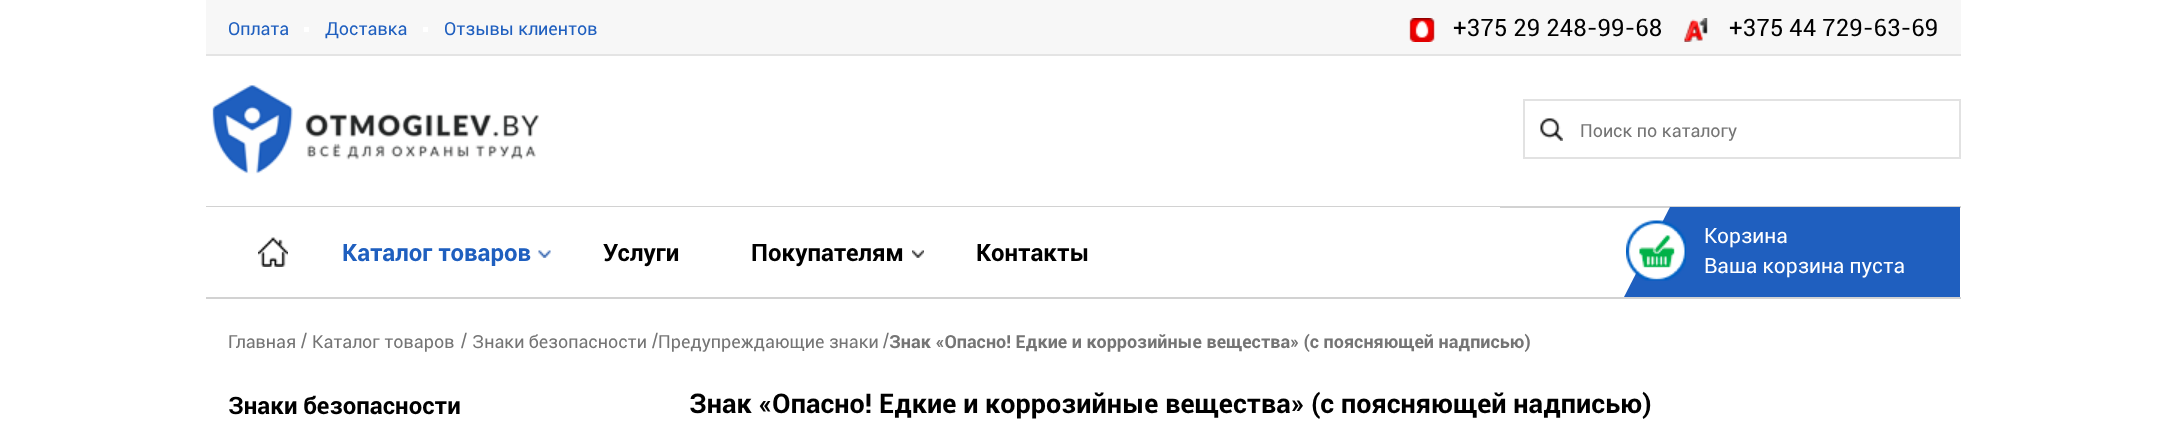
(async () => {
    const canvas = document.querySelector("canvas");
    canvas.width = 2165;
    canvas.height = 433;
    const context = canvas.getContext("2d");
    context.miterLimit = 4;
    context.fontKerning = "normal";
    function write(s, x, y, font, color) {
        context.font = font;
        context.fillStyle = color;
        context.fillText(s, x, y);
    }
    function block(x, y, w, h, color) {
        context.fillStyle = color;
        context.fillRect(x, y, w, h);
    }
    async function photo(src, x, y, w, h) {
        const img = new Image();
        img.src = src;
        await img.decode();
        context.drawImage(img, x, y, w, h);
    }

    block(0, 0, 2165, 433, "rgb(255, 255, 255)");
    block(206, 0, 1755, 54, "rgb(247, 247, 247)");
    block(206, 54, 1755, 2, "rgb(228, 228, 228)");
    write("Оплата", 228, 35, "18px Roboto", "rgb(31, 95, 191)");
    block(304, 27, 5, 5, "rgb(255, 255, 255)");
    write("Доставка", 325, 35, "18px Roboto", "rgb(31, 95, 191)");
    block(423, 27, 5, 5, "rgb(255, 255, 255)");
    write("Отзывы клиентов", 444, 35, "18px Roboto", "rgb(31, 95, 191)");
    await photo("media/1.png", 1409, 18, 26, 24);
    write("+375 29 248-99-68", 1453, 36, "24px Roboto", "rgb(0, 0, 0)");
    await photo("media/2.png", 1684, 18, 24, 24);
    write("+375 44 729-63-69", 1729, 36, "24px Roboto", "rgb(0, 0, 0)");
    await photo("media/3.png", 212, 85, 327, 89);
    context.strokeStyle = "rgb(226, 226, 226)";
    context.lineWidth = 2;
    context.strokeRect(1524, 100, 436, 58);
    await photo("media/4.png", 1540, 118, 23, 23);
    write("Поиск по каталогу", 1580, 137, "18px Roboto", "rgb(117, 117, 117)");
    block(206, 206, 1755, 2, "rgb(210, 210, 210)");
    block(206, 207, 1294, 1, "rgb(255, 255, 255)");
    await photo("media/5.png", 258, 237, 30, 30);
    write("Каталог товаров", 342, 261, "bold 24px Roboto", "rgb(31, 95, 191)");
    await photo("media/6.png", 538, 250, 13, 8);
    write("Услуги", 603, 261, "bold 24px Roboto", "rgb(0, 0, 0)");
    write("Покупателям", 751, 261, "bold 24px Roboto", "rgb(0, 0, 0)");
    await photo("media/7.png", 912, 250, 12, 8);
    write("Контакты", 976, 261, "bold 24px Roboto", "rgb(0, 0, 0)");
    context.fillStyle = "rgb(31, 95, 191)";
    context.beginPath();
    context.moveTo(1960, 297);
    context.lineTo(1624, 297);
    context.lineTo(1670, 207);
    context.lineTo(1960, 207);
    context.closePath();
    context.fill();
    await photo("media/8.png", 1626, 220, 60, 61);
    write("Корзина", 1704, 243, "21px Roboto", "rgb(255, 255, 255)");
    write("Ваша корзина пуста", 1704, 273, "21px Roboto", "rgb(255, 255, 255)");
    block(206, 297, 1755, 2, "rgb(210, 210, 210)");
    write("Главная", 228, 348, "18px Roboto", "rgb(117, 117, 117)");
    write("/", 301, 348, "21px Liberation Sans", "rgb(117, 117, 117)");
    write("Каталог товаров", 312, 348, "18px Roboto", "rgb(117, 117, 117)");
    write("/", 461, 348, "21px Liberation Sans", "rgb(117, 117, 117)");
    write("Знаки безопасности", 472, 348, "18px Roboto", "rgb(117, 117, 117)");
    write("/", 652, 348, "21px Liberation Sans", "rgb(117, 117, 117)");
    write("Предупреждающие знаки", 658, 348, "18px Roboto", "rgb(117, 117, 117)");
    write("/", 883, 348, "21px Liberation Sans", "rgb(117, 117, 117)");
    write("Знак «Опасно! Едкие и коррозийные вещества» (с поясняющей надписью)", 889, 348, "bold 18px Roboto", "rgb(117, 117, 117)");
    write("Знаки безопасности", 228, 414, "bold 24px Roboto", "rgb(0, 0, 0)");
    write("Знак «Опасно! Едкие и коррозийные вещества» (с поясняющей надписью)", 689, 413, "bold 27px Roboto", "rgb(0, 0, 0)");
})();
